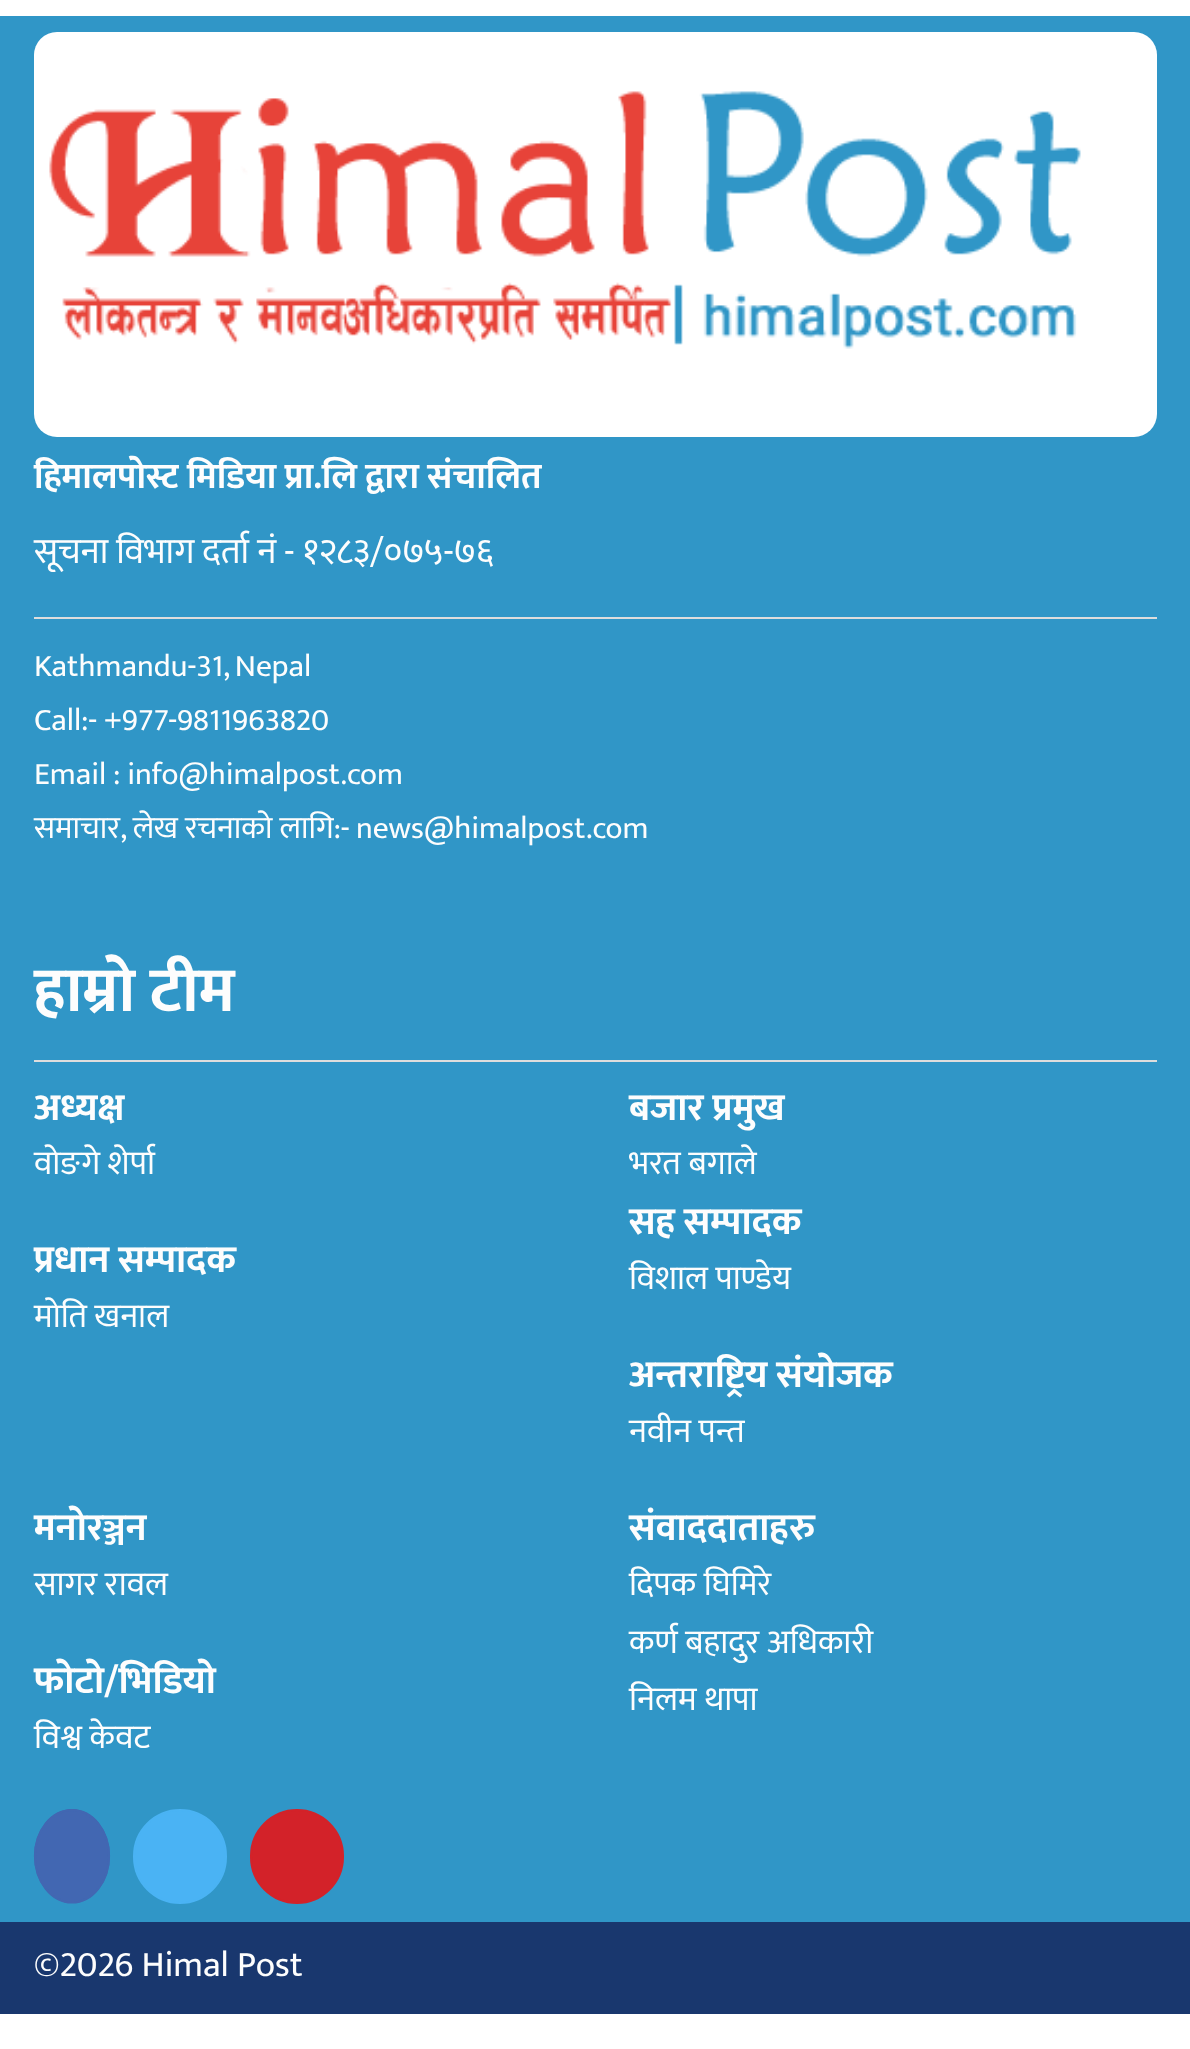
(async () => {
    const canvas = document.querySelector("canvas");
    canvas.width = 1190;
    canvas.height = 2049;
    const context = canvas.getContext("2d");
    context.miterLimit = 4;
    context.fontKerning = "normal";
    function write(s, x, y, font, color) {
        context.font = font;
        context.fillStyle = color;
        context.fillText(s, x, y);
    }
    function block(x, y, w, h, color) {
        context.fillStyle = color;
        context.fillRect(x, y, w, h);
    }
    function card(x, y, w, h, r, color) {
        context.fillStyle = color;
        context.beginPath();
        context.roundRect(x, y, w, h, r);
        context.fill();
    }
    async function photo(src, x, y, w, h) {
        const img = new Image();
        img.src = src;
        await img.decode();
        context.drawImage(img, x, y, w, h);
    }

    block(0, 0, 1190, 2049, "rgb(255, 255, 255)");
    block(0, 16, 1190, 1906, "rgb(48, 150, 199)");
    card(34, 32, 1123, 405, 23, "rgb(255, 255, 255)");
    await photo("media/1.png", 49, 91, 1032, 258);
    write("हिमालपोस्ट मिडिया प्रा.लि द्वारा संचालित", 34, 488, "bold 36px Mukta", "rgb(253, 253, 253)");
    write("सूचना विभाग दर्ता नं - १२८३/०७५-७६", 34, 563, "36px Mukta", "rgb(253, 253, 253)");
    block(34, 617, 1123, 2, "rgb(221, 221, 221)");
    context.wordSpacing = "-1px";
    write("Kathmandu-31, Nepal", 34, 676, "31.5px Mukta", "rgb(253, 253, 253)");
    context.wordSpacing = "0px";
    write("Call:- +977-9811963820", 34, 730, "31.5px Mukta", "rgb(253, 253, 253)");
    write("Email : info@himalpost.com", 34, 784, "31.5px Mukta", "rgb(253, 253, 253)");
    write("समाचार, लेख रचनाको लागि:-", 34, 838, "31.5px Mukta", "rgb(253, 253, 253)");
    write("news@himalpost.com", 356, 838, "31.5px Mukta", "rgb(253, 253, 253)");
    write("हाम्रो टीम", 34, 1011, "bold 63px Mukta", "rgb(253, 253, 253)");
    block(34, 1060, 1123, 2, "rgb(221, 221, 221)");
    write("अध्यक्ष", 34, 1120, "bold 38.25px Mukta", "rgb(253, 253, 253)");
    write("वोङगे शेर्पा", 34, 1174, "33.75px Mukta", "rgb(253, 253, 253)");
    write("प्रधान सम्पादक", 34, 1272, "bold 38.25px Mukta", "rgb(253, 253, 253)");
    write("मोति खनाल", 34, 1327, "33.75px Mukta", "rgb(253, 253, 253)");
    write("बजार प्रमुख", 629, 1120, "bold 38.25px Mukta", "rgb(253, 253, 253)");
    write("भरत बगाले", 629, 1174, "33.75px Mukta", "rgb(253, 253, 253)");
    write("सह सम्पादक", 629, 1234, "bold 38.25px Mukta", "rgb(253, 253, 253)");
    write("विशाल पाण्डेय", 629, 1289, "33.75px Mukta", "rgb(253, 253, 253)");
    write("अन्तराष्ट्रिय संयोजक", 629, 1387, "bold 38.25px Mukta", "rgb(253, 253, 253)");
    write("नवीन पन्त", 629, 1442, "33.75px Mukta", "rgb(253, 253, 253)");
    write("मनोरञ्जन", 34, 1540, "bold 38.25px Mukta", "rgb(253, 253, 253)");
    write("सागर रावल", 34, 1595, "33.75px Mukta", "rgb(253, 253, 253)");
    write("फोटो/भिडियो", 34, 1693, "bold 38.25px Mukta", "rgb(253, 253, 253)");
    write("विश्व केवट", 34, 1748, "33.75px Mukta", "rgb(253, 253, 253)");
    write("संवाददाताहरु", 629, 1540, "bold 38.25px Mukta", "rgb(253, 253, 253)");
    write("दिपक घिमिरे", 629, 1595, "33.75px Mukta", "rgb(253, 253, 253)");
    write("कर्ण बहादुर अधिकारी", 629, 1653, "33.75px Mukta", "rgb(253, 253, 253)");
    write("निलम थापा", 629, 1710, "33.75px Mukta", "rgb(253, 253, 253)");
    context.fillStyle = "rgb(66, 103, 178)";
    context.beginPath();
    context.ellipse(72, 1856, 38, 47, 0, 0, Math.PI * 2);
    context.fill();
    context.beginPath();
    context.moveTo(72, 1810);
    context.bezierCurveTo(92.5, 1810, 109, 1831, 109, 1856);
    context.bezierCurveTo(109, 1881.5, 92.5, 1902.5, 72, 1902.5);
    context.bezierCurveTo(51.5, 1902.5, 35, 1881.5, 35, 1856);
    context.bezierCurveTo(35, 1831, 51.5, 1810, 72, 1810);
    context.closePath();
    context.strokeStyle = "rgb(66, 103, 178)";
    context.lineWidth = 2.2;
    context.stroke();
    context.fillStyle = "rgb(74, 179, 244)";
    context.beginPath();
    context.roundRect(134, 1810, 92, 93, 46);
    context.fill();
    context.strokeStyle = "rgb(74, 179, 244)";
    context.lineWidth = 2;
    context.stroke();
    context.fillStyle = "rgb(211, 34, 41)";
    context.beginPath();
    context.roundRect(251, 1810, 92, 93, 46);
    context.fill();
    context.strokeStyle = "rgb(211, 34, 41)";
    context.stroke();
    block(0, 1922, 1190, 92, "rgb(25, 55, 110)");
    write("©2026 Himal Post", 34, 1976, "36px Mukta", "rgb(253, 253, 253)");
})();
